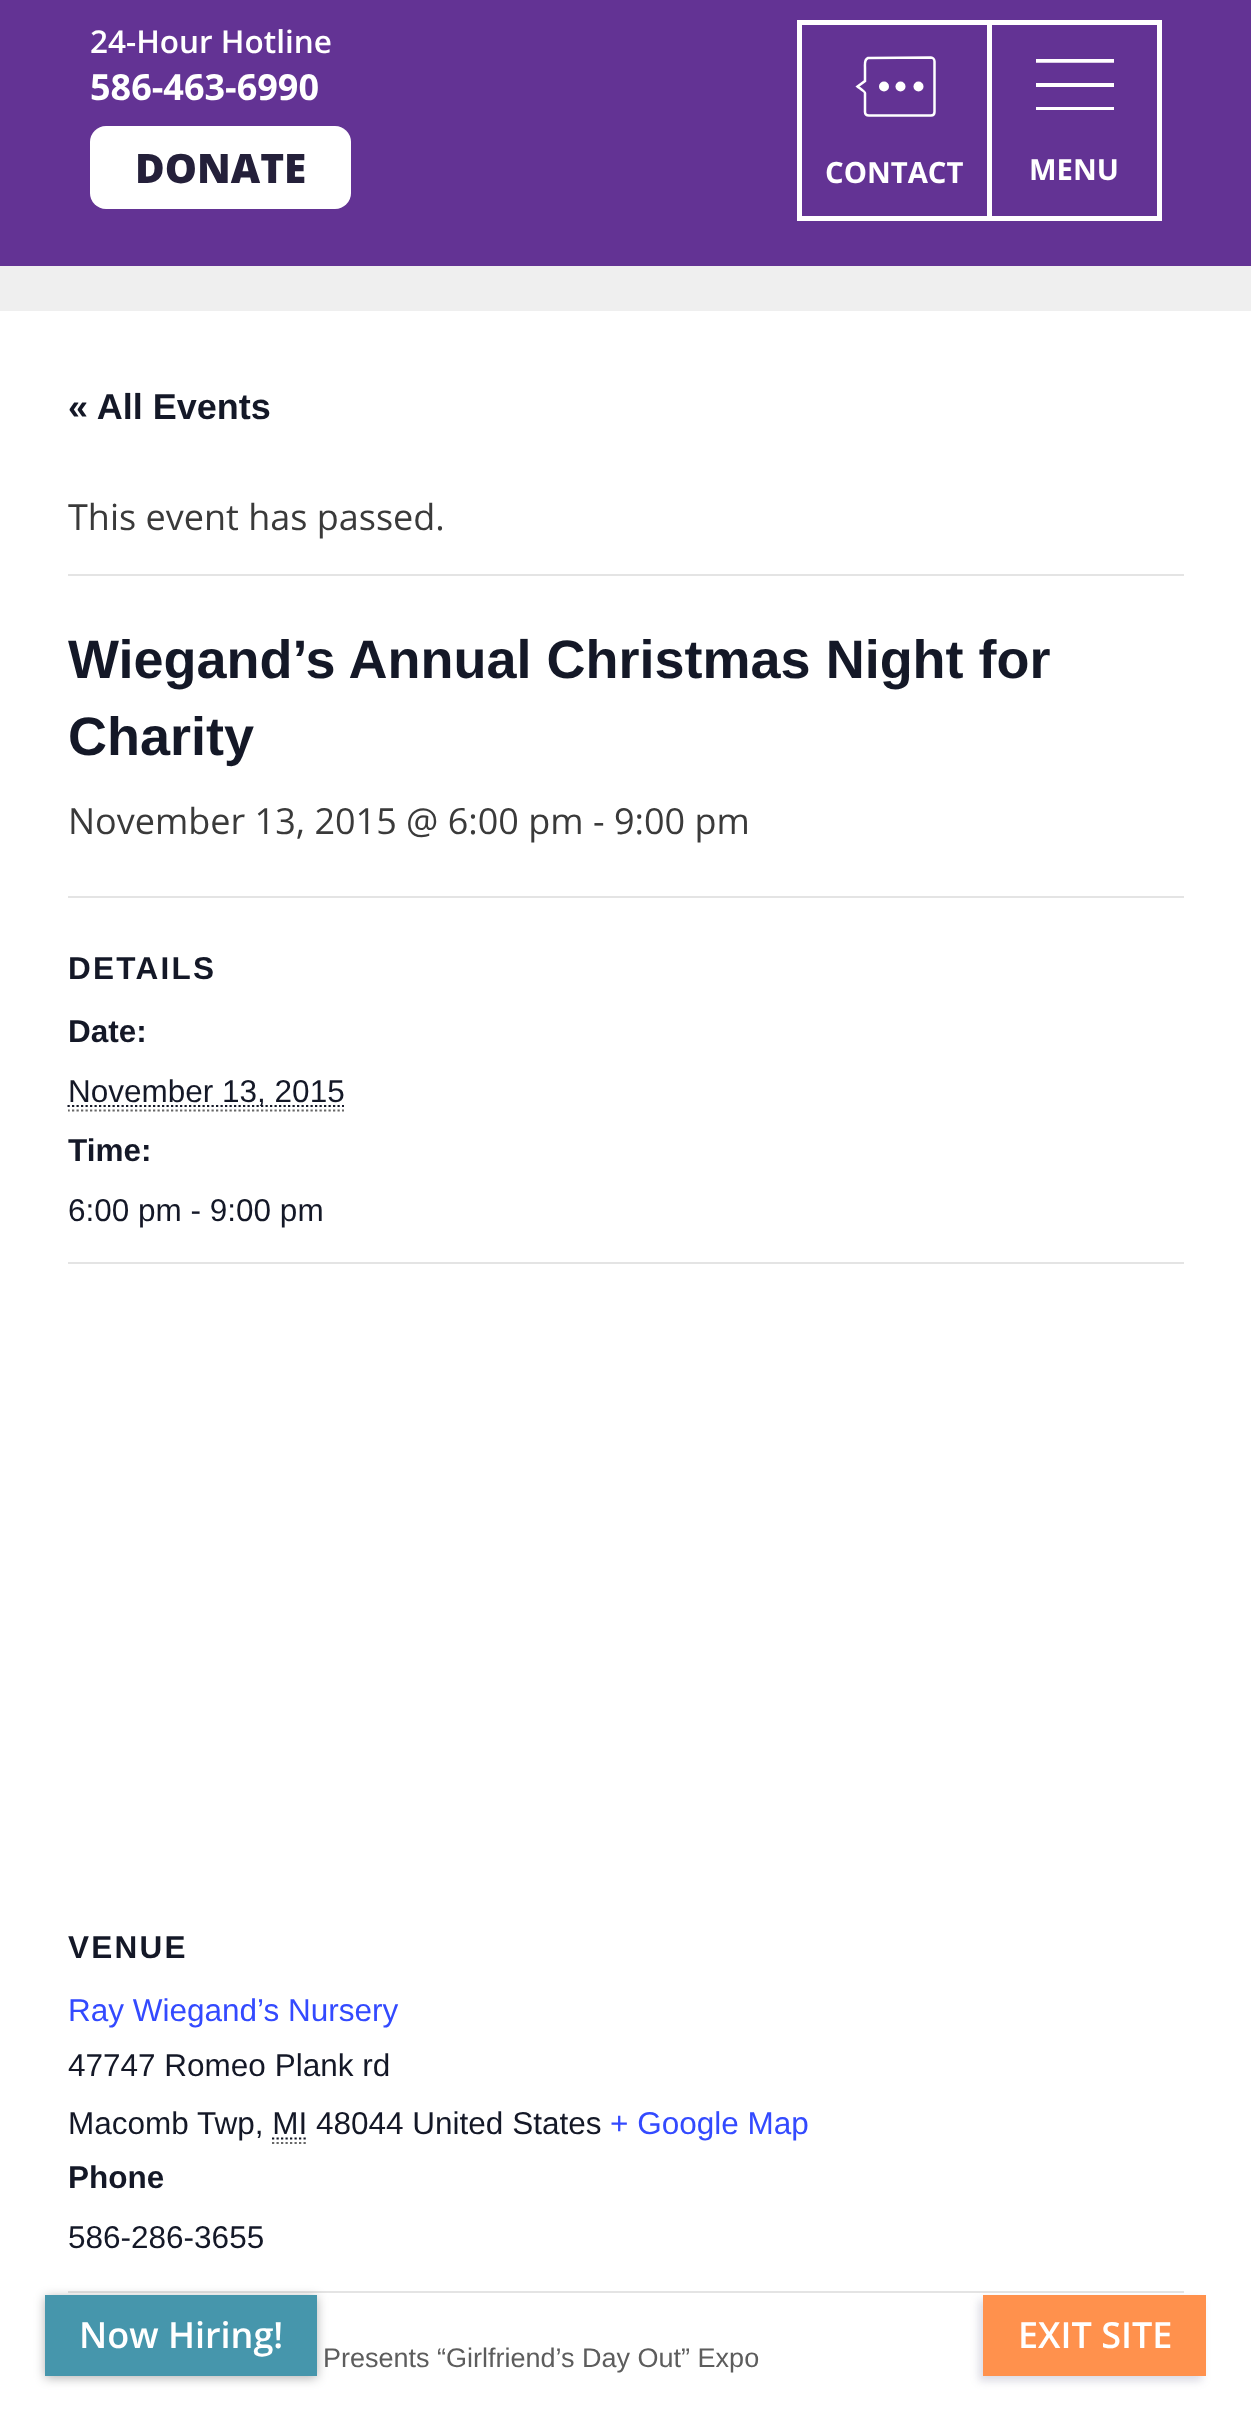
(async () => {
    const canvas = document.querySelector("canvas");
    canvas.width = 1251;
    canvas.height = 2420;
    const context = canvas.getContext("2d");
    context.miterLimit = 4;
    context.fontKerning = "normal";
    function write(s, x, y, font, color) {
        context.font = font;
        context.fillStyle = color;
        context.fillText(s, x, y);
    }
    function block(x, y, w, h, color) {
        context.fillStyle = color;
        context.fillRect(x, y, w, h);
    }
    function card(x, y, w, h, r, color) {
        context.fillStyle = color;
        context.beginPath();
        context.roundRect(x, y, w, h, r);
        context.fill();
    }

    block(0, 0, 1251, 2420, "rgb(239, 239, 239)");
    block(0, 0, 1251, 266, "rgb(99, 51, 148)");
    write("24-Hour Hotline", 90, 53, "600 31.5px Open Sans", "rgb(255, 255, 255)");
    write("586-463-6990", 90, 100, "bold 36px Open Sans", "rgb(255, 255, 255)");
    card(90, 126, 261, 83, 16, "rgb(255, 255, 255)");
    write("DONATE", 135, 183, "800 40.5px Open Sans", "rgb(36, 32, 58)");
    context.strokeStyle = "rgb(255, 255, 255)";
    context.lineWidth = 5;
    context.strokeRect(799.5, 22.5, 190, 196);
    context.beginPath();
    context.moveTo(931, 57.5);
    context.lineTo(868, 58);
    context.bezierCurveTo(864, 59.5, 865, 64, 865, 67.5);
    context.lineTo(865, 81);
    context.lineTo(857.5, 86.5);
    context.bezierCurveTo(860, 88.5, 865, 92, 865, 93);
    context.lineTo(865, 112);
    context.bezierCurveTo(865, 114.5, 867, 115.5, 869, 115.5);
    context.lineTo(931, 115.5);
    context.bezierCurveTo(934, 115.5, 934.5, 114, 934.5, 112);
    context.lineTo(934.5, 61.5);
    context.bezierCurveTo(934.5, 59.5, 933, 57.5, 931, 57.5);
    context.closePath();
    context.lineWidth = 2.5;
    context.stroke();
    context.fillStyle = "rgb(255, 255, 255)";
    context.beginPath();
    context.arc(884, 86.5, 5, 0, Math.PI * 2);
    context.fill();
    context.beginPath();
    context.arc(900.5, 86.5, 5, 0, Math.PI * 2);
    context.fill();
    context.beginPath();
    context.arc(918.5, 86.5, 5, 0, Math.PI * 2);
    context.fill();
    write("CONTACT", 825, 183, "bold 29.25px Open Sans", "rgb(255, 255, 255)");
    block(992, 20, 169, 5, "rgb(255, 255, 255)");
    block(1157, 20, 5, 201, "rgb(255, 255, 255)");
    block(992, 216, 169, 5, "rgb(255, 255, 255)");
    context.save();
    context.beginPath();
    context.rect(1035, 59, 79, 51);
    context.clip();
    context.beginPath();
    context.moveTo(1036, 60.5);
    context.lineTo(1116, 60.5);
    context.lineWidth = 4.4;
    context.stroke();
    context.restore();
    block(1036, 107, 78, 3, "rgb(255, 255, 255)");
    block(1036, 83, 78, 4, "rgb(255, 255, 255)");
    write("MENU", 1029, 180, "bold 29.25px Open Sans", "rgb(255, 255, 255)");
    block(0, 311, 1251, 2109, "rgb(255, 255, 255)");
    write("« All Events", 68, 419, "bold 36px Liberation Sans", "rgb(20, 24, 39)");
    block(68, 574, 1116, 2, "rgb(228, 228, 228)");
    write("This event has passed.", 68, 530, "36px Open Sans", "rgb(58, 58, 58)");
    write("Wiegand’s Annual Christmas Night for", 68, 678, "bold 54px Liberation Sans", "rgb(20, 24, 39)");
    write("Charity", 68, 755, "bold 54px Liberation Sans", "rgb(20, 24, 39)");
    write("November 13, 2015 @ 6:00 pm - 9:00 pm", 68, 834, "36px Open Sans", "rgb(58, 58, 58)");
    block(68, 896, 1116, 2, "rgb(228, 228, 228)");
    context.letterSpacing = "2.25px";
    write("DETAILS", 68, 979, "bold 31.5px Liberation Sans", "rgb(20, 24, 39)");
    context.letterSpacing = "0px";
    write("Date:", 68, 1042, "bold 31.5px Liberation Sans", "rgb(20, 24, 39)");
    context.beginPath();
    context.moveTo(67.5, 1106);
    context.lineTo(344, 1106);
    context.strokeStyle = "rgb(20, 24, 39)";
    context.lineWidth = 2.2;
    context.setLineDash([2.25, 2.25]);
    context.stroke();
    write("November 13, 2015", 68, 1102, "31.5px Liberation Sans", "rgb(20, 24, 39)");
    context.save();
    context.beginPath();
    context.rect(68, 896, 1116, 1395);
    context.clip();
    context.beginPath();
    context.moveTo(67.5, 1110.5);
    context.lineTo(344, 1110.5);
    context.strokeStyle = "rgb(102, 102, 102)";
    context.stroke();
    write("Time:", 68, 1161, "bold 31.5px Liberation Sans", "rgb(20, 24, 39)");
    context.restore();
    write("6:00 pm - 9:00 pm", 68, 1221, "31.5px Liberation Sans", "rgb(20, 24, 39)");
    block(68, 1262, 1116, 2, "rgb(228, 228, 228)");
    context.letterSpacing = "2.25px";
    write("VENUE", 68, 1958, "bold 31.5px Liberation Sans", "rgb(20, 24, 39)");
    context.letterSpacing = "0px";
    write("Ray Wiegand’s Nursery", 68, 2021, "31.5px Liberation Sans", "rgb(51, 74, 255)");
    write("47747 Romeo Plank rd", 68, 2076, "31.5px Liberation Sans", "rgb(20, 24, 39)");
    write("Macomb Twp, MI 48044 United States", 68, 2134, "31.5px Liberation Sans", "rgb(20, 24, 39)");
    context.beginPath();
    context.moveTo(272, 2143);
    context.lineTo(306, 2143);
    context.strokeStyle = "rgb(102, 102, 102)";
    context.stroke();
    context.beginPath();
    context.moveTo(272, 2138.5);
    context.lineTo(307, 2138.5);
    context.strokeStyle = "rgb(20, 24, 39)";
    context.stroke();
    write("+ Google Map", 610, 2134, "31.5px Liberation Sans", "rgb(51, 74, 255)");
    write("Phone", 68, 2188, "bold 31.5px Liberation Sans", "rgb(20, 24, 39)");
    write("586-286-3655", 68, 2248, "31.5px Liberation Sans", "rgb(20, 24, 39)");
    block(68, 2291, 1116, 2, "rgb(228, 228, 228)");
    write("Presents “Girlfriend’s Day Out” Expo", 323, 2367, "27px Liberation Sans", "rgb(93, 93, 93)");
    context.fillStyle = "rgba(0, 0, 0, 0.3)";
    context.filter = "blur(5.5px)";
    context.beginPath();
    context.rect(45, 2297, 272, 81);
    context.fill();
    context.filter = "none";
    block(45, 2295, 272, 81, "rgb(70, 150, 172)");
    write("Now Hiring!", 79, 2348, "600 36px Open Sans", "rgb(255, 255, 255)");
    context.fillStyle = "rgba(77, 71, 115, 0.2)";
    context.filter = "blur(4.5px)";
    context.beginPath();
    context.rect(979, 2300, 223, 81);
    context.fill();
    context.filter = "none";
    block(983, 2295, 223, 81, "rgb(255, 145, 77)");
    write("EXIT SITE", 1018, 2348, "600 36px Open Sans", "rgb(255, 255, 255)");
})();
